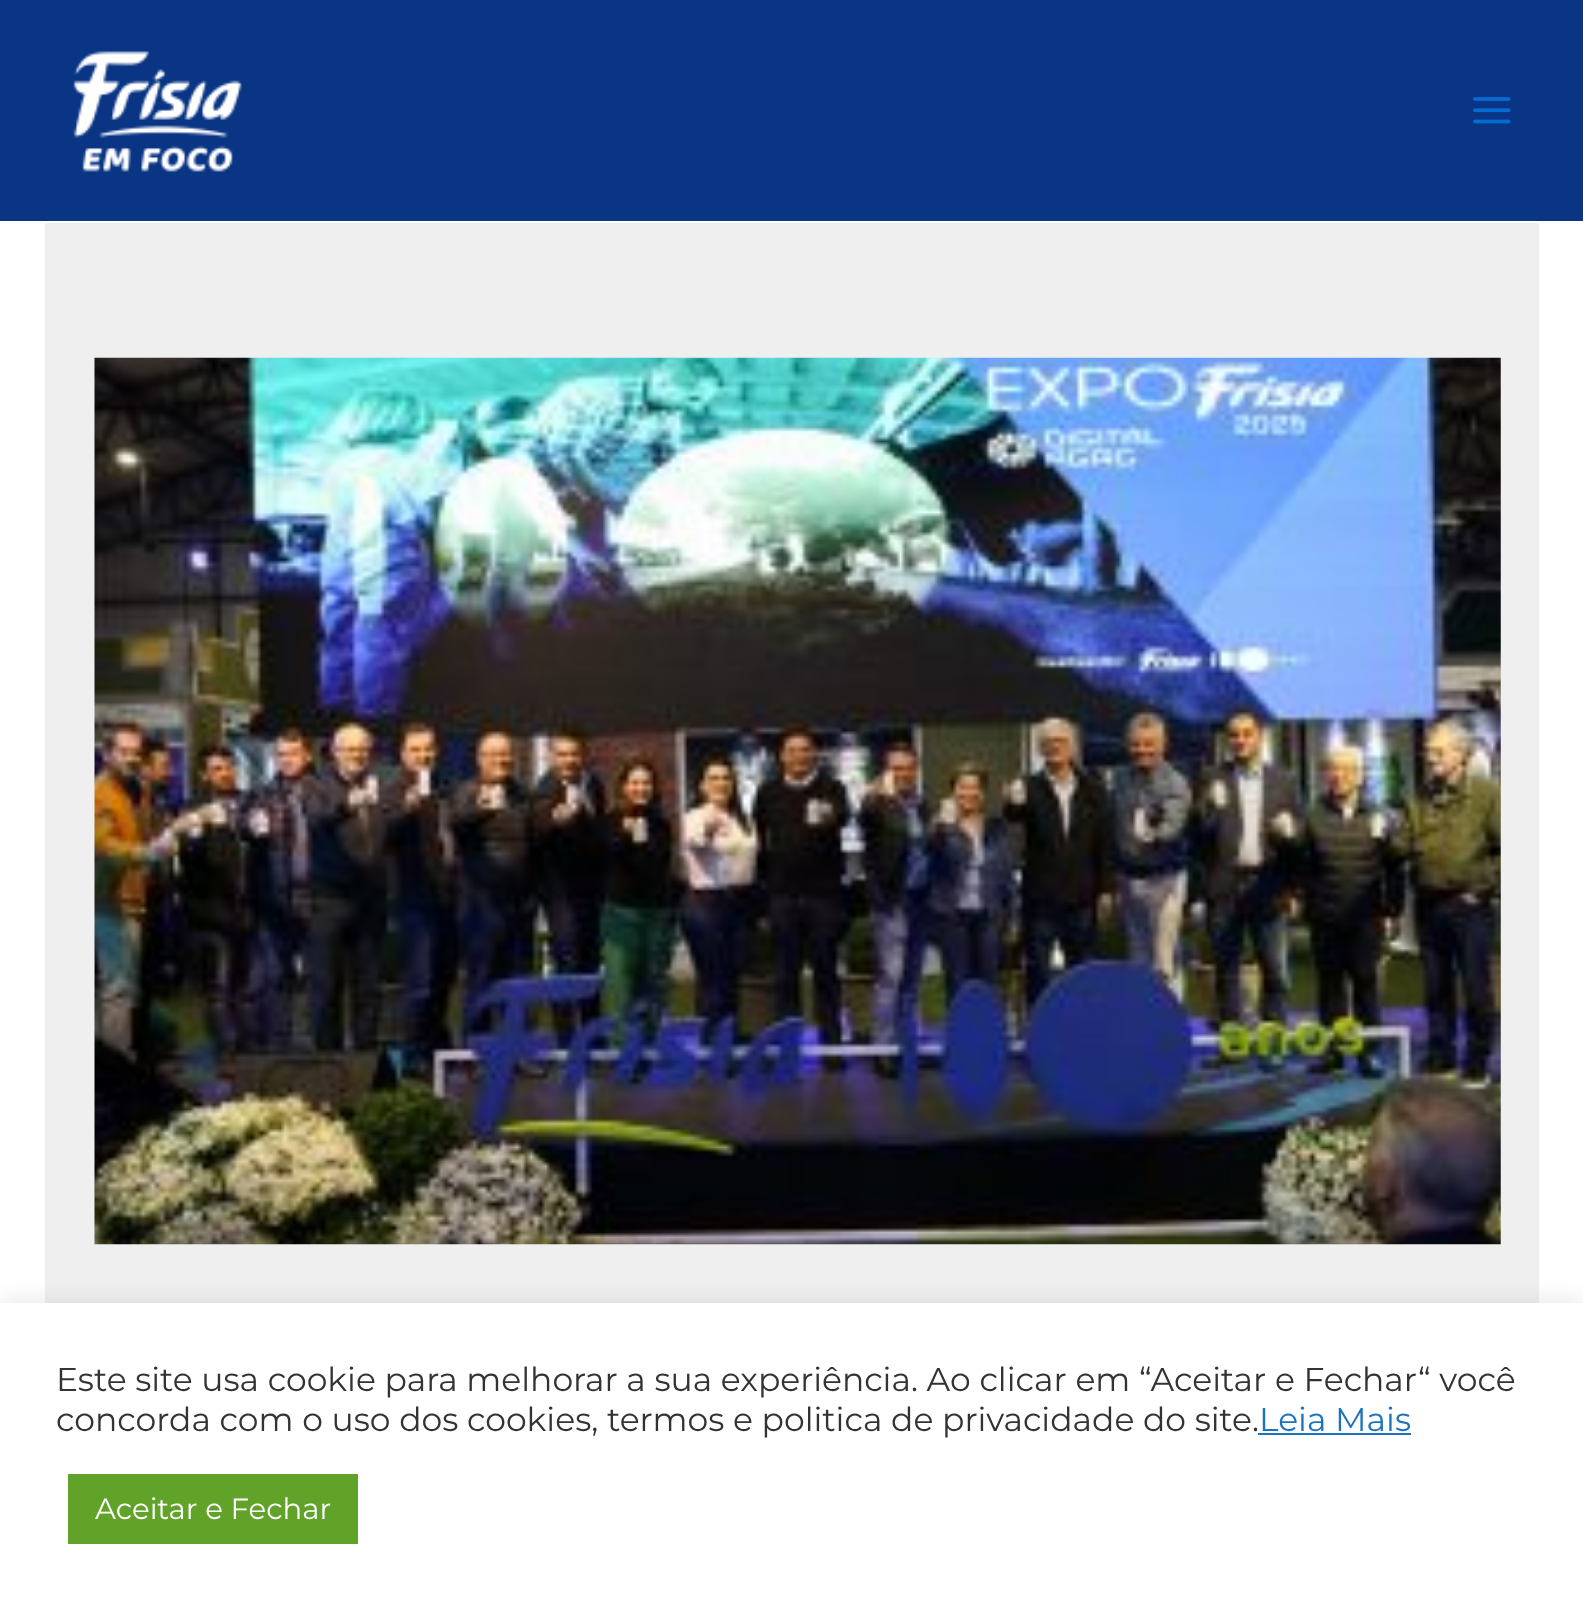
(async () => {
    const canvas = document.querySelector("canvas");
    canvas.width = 1583;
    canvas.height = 1611;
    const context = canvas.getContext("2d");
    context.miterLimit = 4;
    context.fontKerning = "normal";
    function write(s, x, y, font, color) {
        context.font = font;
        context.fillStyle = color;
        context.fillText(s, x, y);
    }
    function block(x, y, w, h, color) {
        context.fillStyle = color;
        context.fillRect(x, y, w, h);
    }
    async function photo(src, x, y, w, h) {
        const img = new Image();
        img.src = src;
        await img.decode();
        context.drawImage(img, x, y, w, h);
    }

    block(0, 0, 1583, 1611, "rgb(255, 255, 255)");
    block(0, 0, 1583, 221, "rgb(10, 53, 132)");
    await photo("media/1.png", 73, 51, 169, 121);
    await photo("media/2.png", 1473, 97, 38, 27);
    block(45, 223, 1494, 1080, "rgb(239, 239, 239)");
    await photo("media/3.png", 94, 357, 1407, 888);
    context.fillStyle = "rgba(172, 171, 171, 0.3)";
    context.filter = "blur(11px)";
    context.beginPath();
    context.rect(0, 1301, 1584, 308);
    context.fill();
    context.filter = "none";
    block(0, 1303, 1583, 308, "rgb(255, 255, 255)");
    write("Este site usa cookie para melhorar a sua experiência. Ao clicar em", 56, 1391, "33px Montserrat", "rgb(51, 51, 51)");
    write("“Aceitar e Fechar“ você", 1139, 1391, "33px Montserrat", "rgb(51, 51, 51)");
    write("concorda com o uso dos cookies, termos e politica de privacidade do site.", 56, 1431, "33px Montserrat", "rgb(51, 51, 51)");
    write("Leia Mais", 1259, 1431, "33px Montserrat", "rgb(30, 115, 190)");
    block(1258, 1433, 153, 2, "rgb(30, 115, 190)");
    block(68, 1474, 290, 70, "rgb(97, 162, 41)");
    write("Aceitar e Fechar", 95, 1519, "29.25px Montserrat", "rgb(255, 255, 255)");
})();
